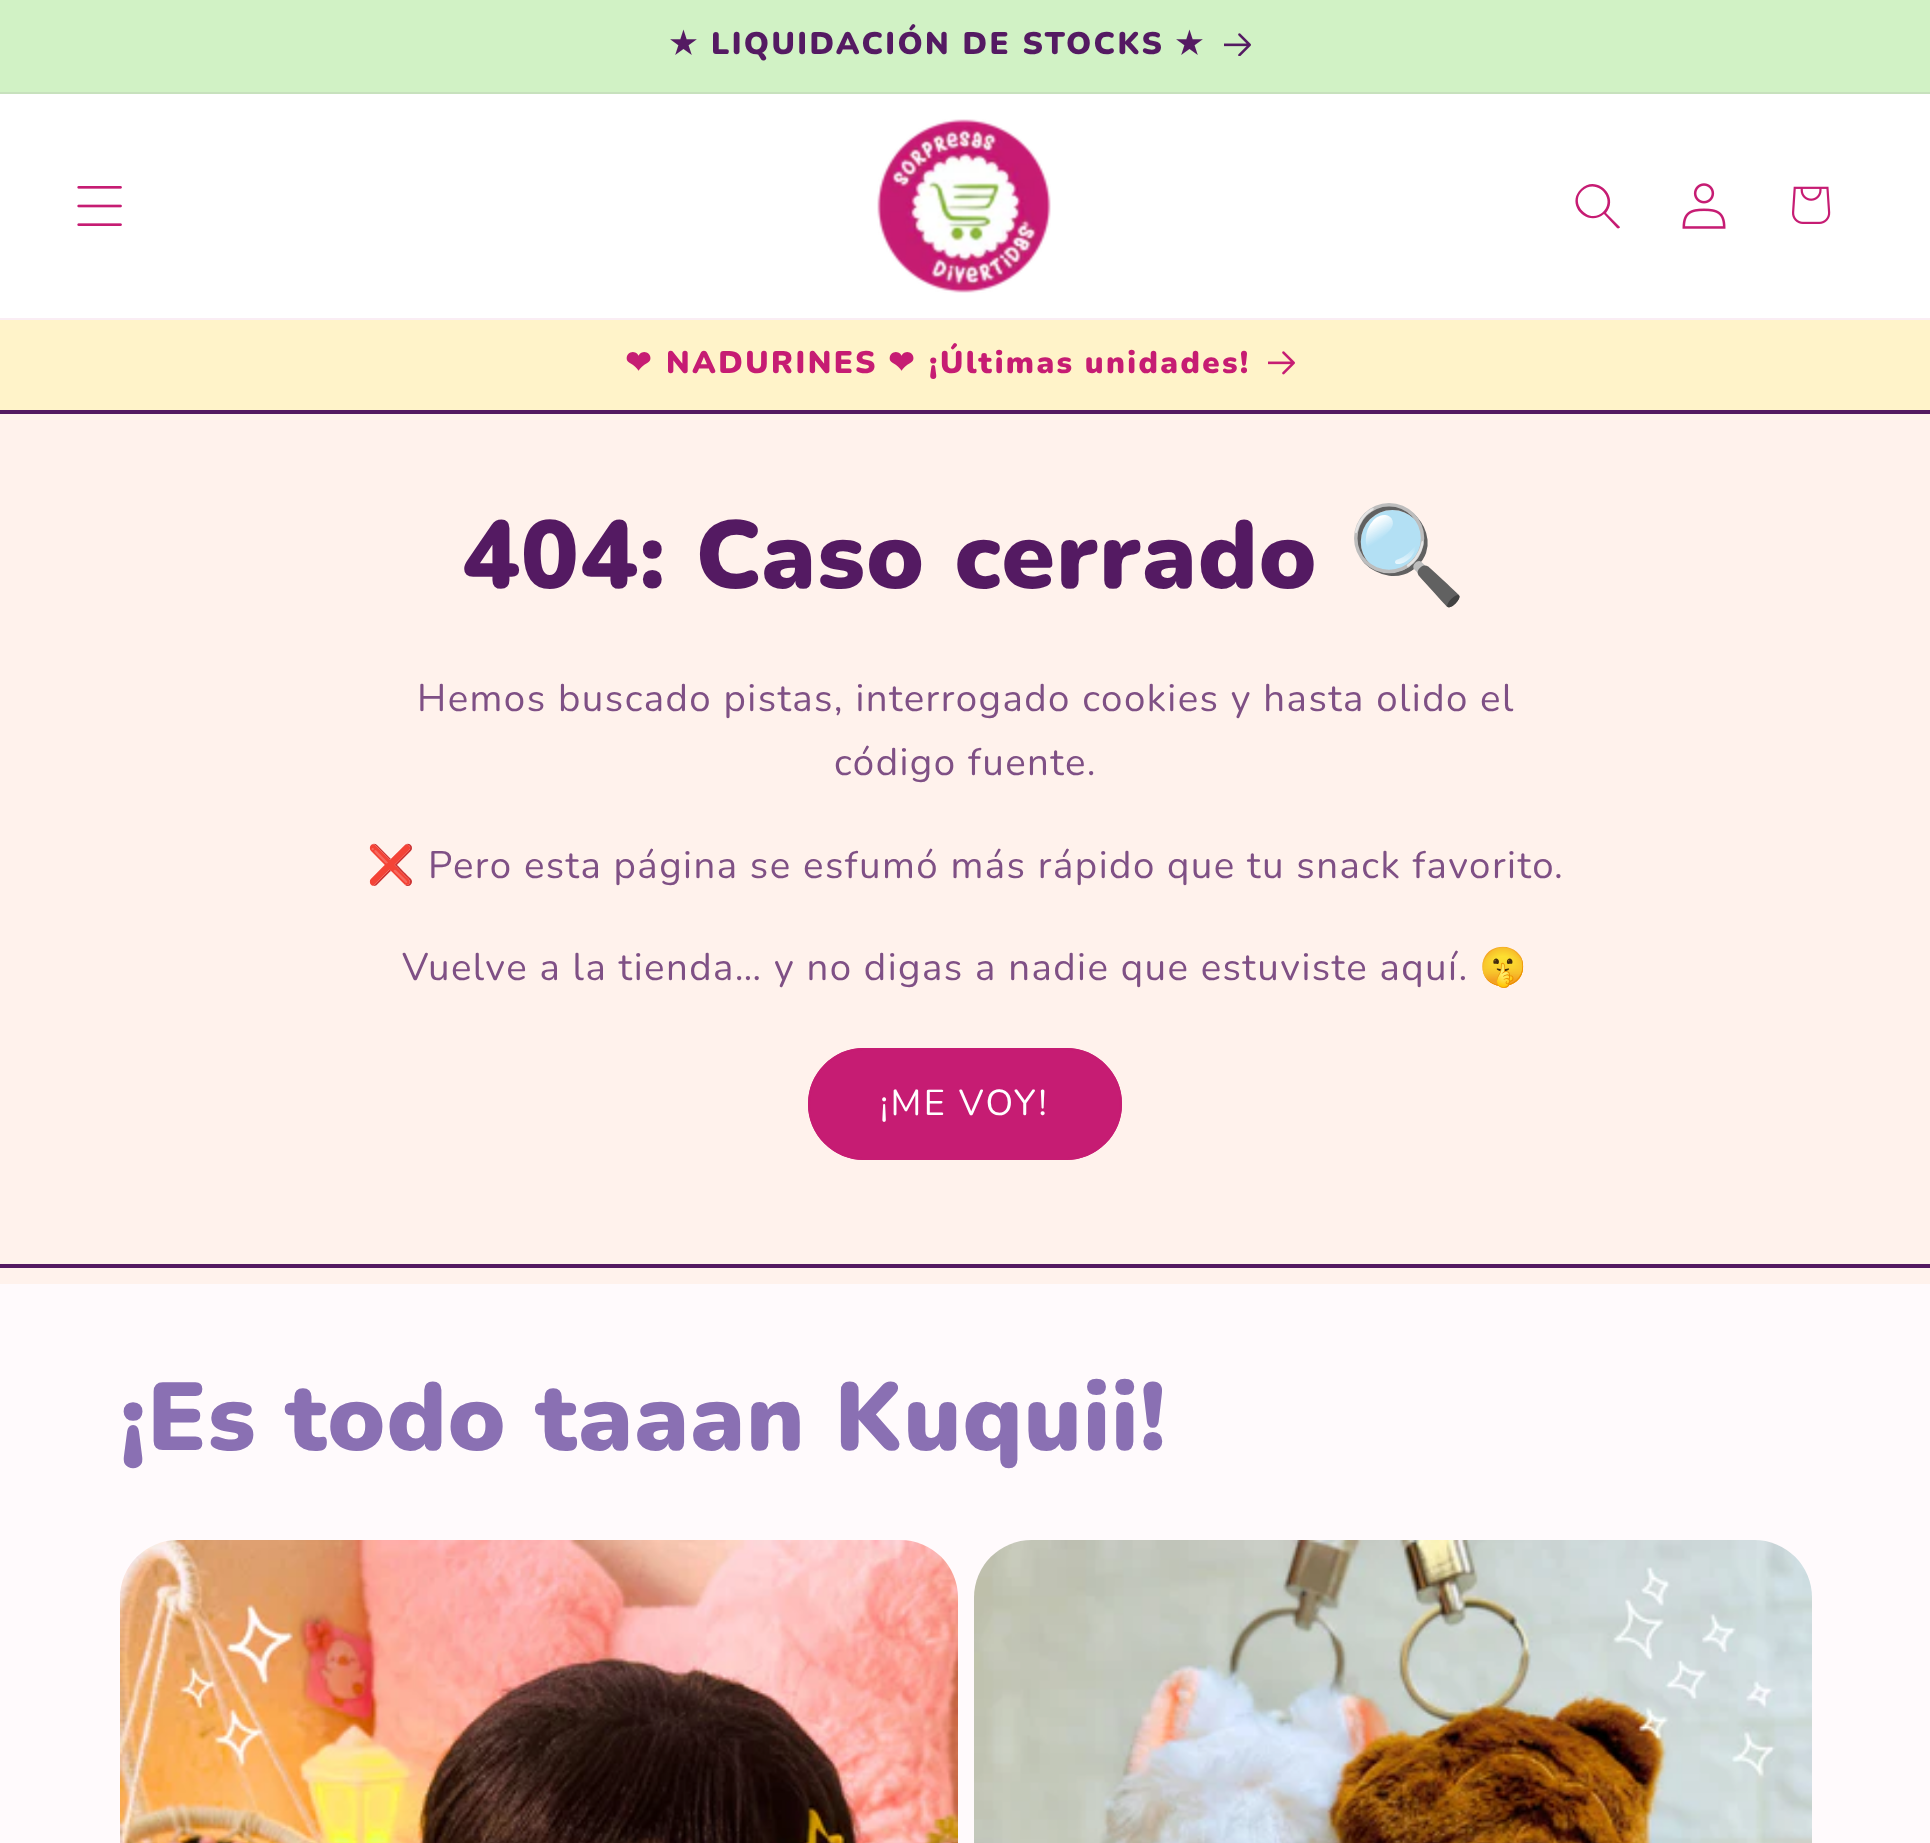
(async () => {
    const canvas = document.querySelector("canvas");
    canvas.width = 1930;
    canvas.height = 1843;
    const context = canvas.getContext("2d");
    context.miterLimit = 4;
    context.fontKerning = "normal";
    function write(s, x, y, font, color) {
        context.font = font;
        context.fillStyle = color;
        context.fillText(s, x, y);
    }
    function block(x, y, w, h, color) {
        context.fillStyle = color;
        context.fillRect(x, y, w, h);
    }
    function card(x, y, w, h, r, color) {
        context.fillStyle = color;
        context.beginPath();
        context.roundRect(x, y, w, h, r);
        context.fill();
    }
    async function photo(src, x, y, w, h) {
        const img = new Image();
        img.src = src;
        await img.decode();
        context.drawImage(img, x, y, w, h);
    }

    block(0, 0, 1930, 1843, "rgb(255, 242, 236)");
    block(0, 0, 1930, 92, "rgb(209, 242, 197)");
    block(0, 92, 1930, 2, "rgb(199, 225, 189)");
    context.letterSpacing = "2.4px";
    write("★", 669, 54, "bold 31.25px DejaVu Sans", "rgb(84, 26, 98)");
    write("LIQUIDACIÓN DE STOCKS", 711, 54, "900 31.25px Nunito", "rgb(84, 26, 98)");
    write("★", 1175, 54, "bold 31.25px DejaVu Sans", "rgb(84, 26, 98)");
    await photo("media/1.png", 1224, 33, 27, 23);
    block(0, 94, 1930, 224, "rgb(255, 255, 255)");
    block(0, 318, 1930, 2, "rgb(250, 237, 244)");
    await photo("media/2.png", 77, 186, 45, 40);
    await photo("media/3.png", 877, 119, 174, 174);
    context.fillStyle = "rgb(198, 28, 115)";
    context.beginPath();
    context.moveTo(1603, 212);
    context.bezierCurveTo(1590, 225, 1569, 204, 1582, 191);
    context.bezierCurveTo(1596, 177, 1617, 198, 1603, 212);
    context.moveTo(1604, 214);
    context.bezierCurveTo(1587, 228, 1565, 204, 1581, 189);
    context.bezierCurveTo(1596, 174, 1620, 196, 1606, 213);
    context.lineTo(1620, 227);
    context.bezierCurveTo(1620, 228, 1618, 229, 1617, 228);
    context.closePath();
    context.fill("evenodd");
    await photo("media/4.png", 1682, 183, 44, 46);
    await photo("media/5.png", 1792, 186, 39, 38);
    block(0, 320, 1930, 90, "rgb(255, 243, 201)");
    write("❤︎", 625, 373, "bold 31.25px DejaVu Sans", "rgb(198, 28, 115)");
    write("NADURINES", 666, 373, "900 31.25px Nunito", "rgb(198, 28, 115)");
    write("❤︎", 888, 373, "bold 31.25px DejaVu Sans", "rgb(198, 28, 115)");
    context.wordSpacing = "-1px";
    write("¡Últimas unidades!", 929, 373, "900 31.25px Nunito", "rgb(198, 28, 115)");
    await photo("media/6.png", 1268, 351, 27, 24);
    block(0, 410, 1930, 4, "rgb(84, 26, 98)");
    block(0, 1264, 1930, 4, "rgb(84, 26, 98)");
    context.letterSpacing = "1.45px";
    context.wordSpacing = "0px";
    write("404: Caso cerrado", 462, 588, "900 96px Nunito", "rgb(84, 26, 98)");
    write("🔍", 1347, 588, "bold 96px Noto Color Emoji", "rgb(84, 26, 98)");
    write("Hemos buscado pistas, interrogado cookies y hasta olido el", 417, 711, "38.4px Nunito", "rgb(127, 80, 133)");
    write("código fuente.", 834, 775, "38.4px Nunito", "rgb(127, 80, 133)");
    write("❌", 367, 878, "38.4px Noto Color Emoji", "rgb(127, 80, 133)");
    write("Pero esta página se esfumó más rápido que tu snack favorito.", 428, 878, "38.4px Nunito", "rgb(127, 80, 133)");
    write("Vuelve a la tienda… y no digas a nadie que estuviste aquí.", 402, 980, "38.4px Nunito", "rgb(127, 80, 133)");
    write("🤫", 1479, 980, "38.4px Noto Color Emoji", "rgb(127, 80, 133)");
    card(808, 1048, 314, 112, 56, "rgb(198, 28, 115)");
    context.beginPath();
    context.roundRect(809, 1049, 312, 110, 55);
    context.strokeStyle = "rgb(198, 28, 115)";
    context.lineWidth = 2;
    context.stroke();
    context.letterSpacing = "2.4px";
    write("¡ME VOY!", 880, 1115, "36px Nunito", "rgb(255, 255, 255)");
    block(0, 1284, 1930, 559, "rgb(255, 250, 252)");
    context.letterSpacing = "1.45px";
    write("¡Es todo taaan Kuquii!", 120, 1450, "900 96px Nunito", "rgb(138, 112, 179)");
    await photo("media/7.png", 120, 1540, 838, 303);
    await photo("media/8.png", 974, 1540, 838, 303);
})();
